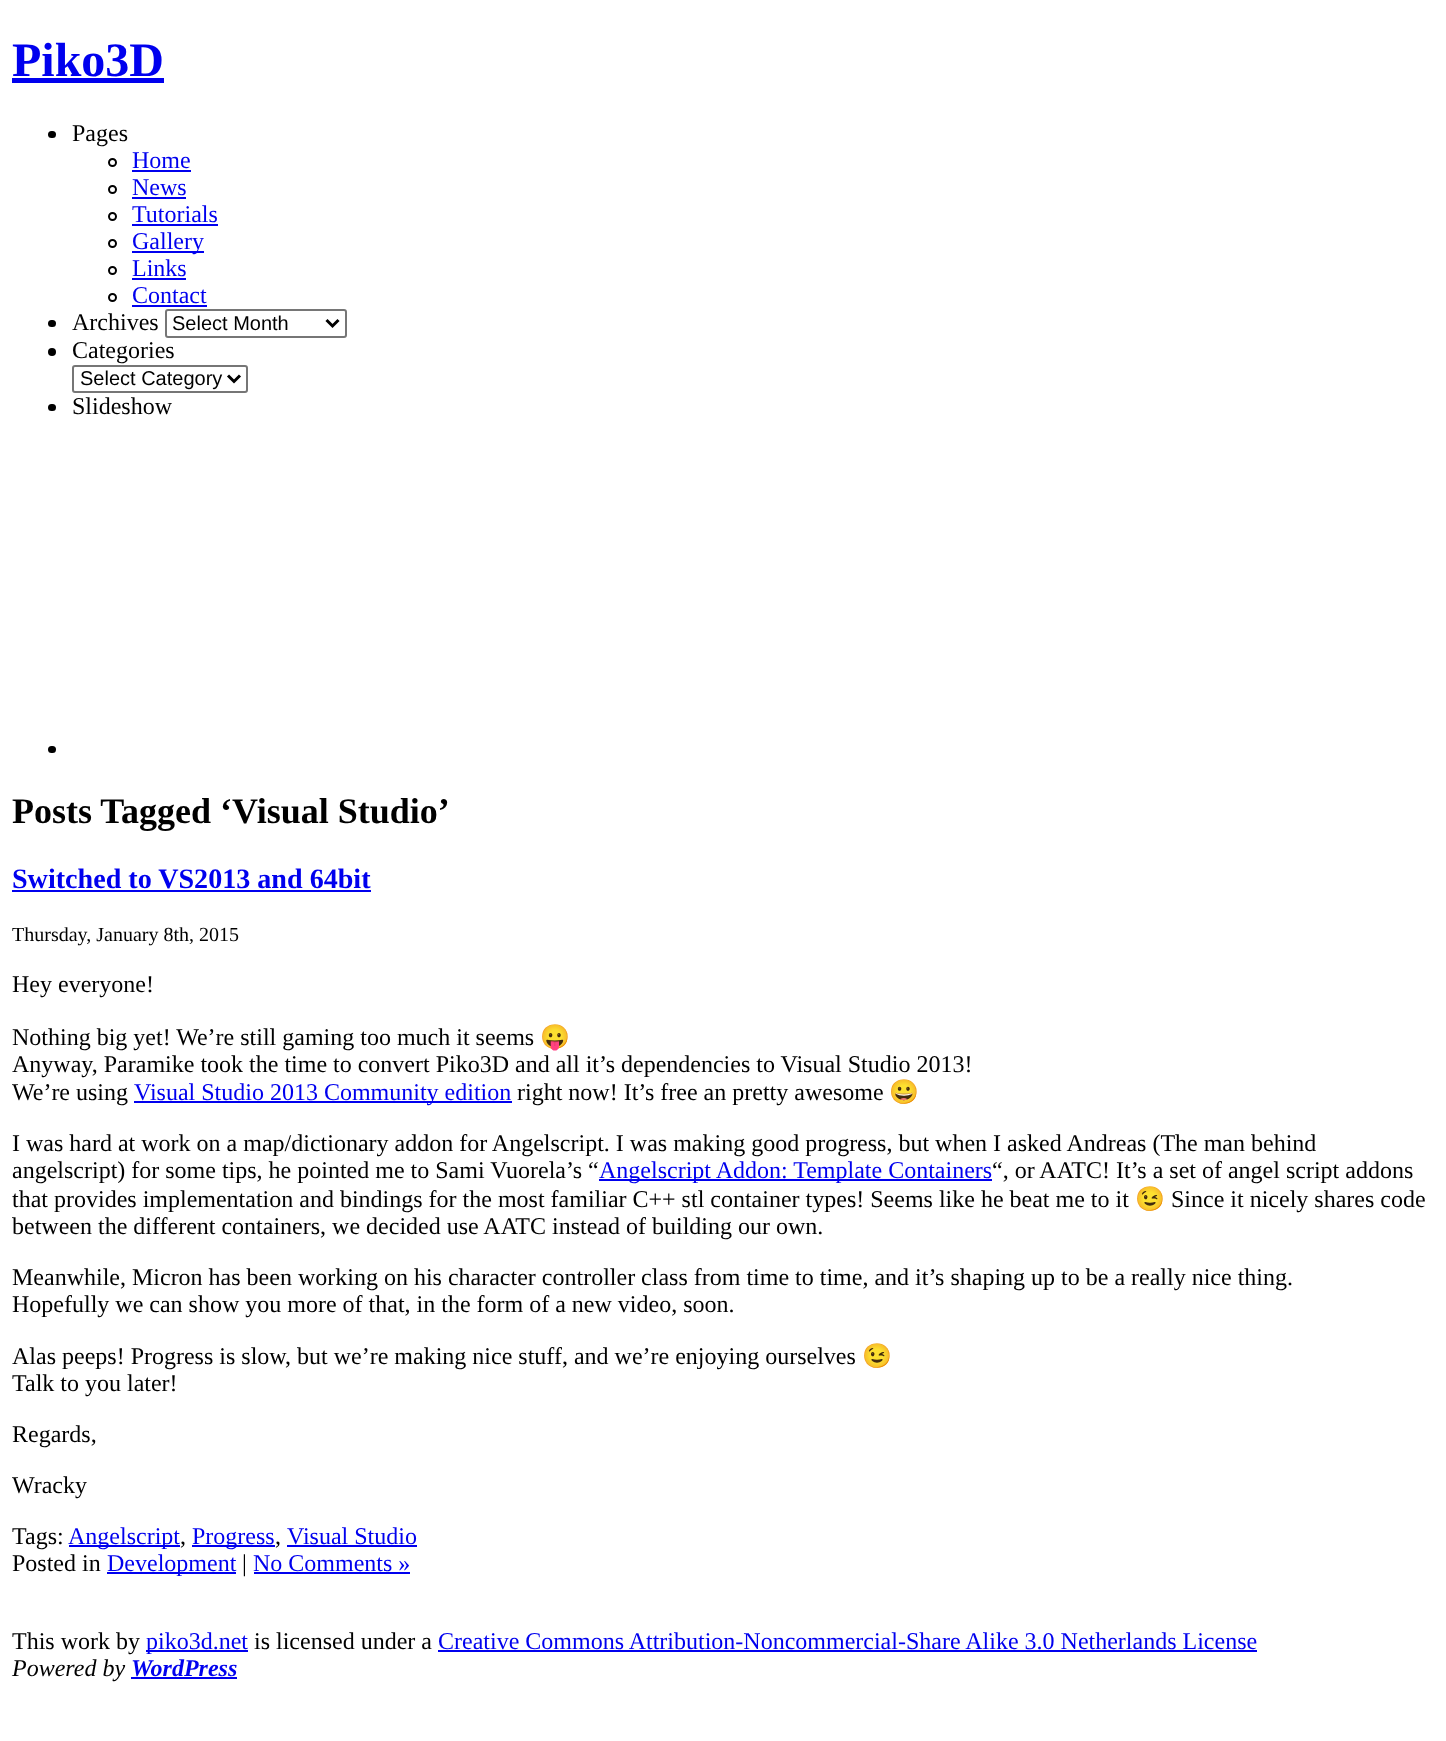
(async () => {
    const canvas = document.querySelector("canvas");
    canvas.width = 1446;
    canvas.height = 1741;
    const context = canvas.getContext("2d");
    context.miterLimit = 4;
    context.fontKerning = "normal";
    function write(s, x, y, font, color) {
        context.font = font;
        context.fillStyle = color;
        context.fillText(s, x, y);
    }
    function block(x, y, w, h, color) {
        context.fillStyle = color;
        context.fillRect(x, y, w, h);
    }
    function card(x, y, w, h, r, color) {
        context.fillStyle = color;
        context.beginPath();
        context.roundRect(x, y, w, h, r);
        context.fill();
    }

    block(0, 0, 1446, 1741, "rgb(255, 255, 255)");
    write("Piko3D", 12, 76, "bold 48px Liberation Serif", "rgb(0, 0, 238)");
    block(12, 78, 152, 5, "rgb(0, 0, 238)");
    card(48, 131, 8, 7, 3.5, "rgb(0, 0, 0)");
    write("Pages", 72, 141, "24px Liberation Serif", "rgb(0, 0, 0)");
    context.beginPath();
    context.arc(112.5, 162.5, 3.5, 0, Math.PI * 2);
    context.strokeStyle = "rgb(0, 0, 0)";
    context.lineWidth = 2;
    context.stroke();
    write("Home", 132, 168, "24px Liberation Serif", "rgb(0, 0, 238)");
    block(132, 170, 59, 2, "rgb(0, 0, 238)");
    context.beginPath();
    context.arc(112.5, 189.5, 3.5, 0, Math.PI * 2);
    context.stroke();
    write("News", 132, 195, "24px Liberation Serif", "rgb(0, 0, 238)");
    block(132, 197, 54, 2, "rgb(0, 0, 238)");
    context.beginPath();
    context.arc(112.5, 216.5, 3.5, 0, Math.PI * 2);
    context.stroke();
    write("Tutorials", 132, 222, "24px Liberation Serif", "rgb(0, 0, 238)");
    block(132, 224, 86, 2, "rgb(0, 0, 238)");
    context.beginPath();
    context.arc(112.5, 243.5, 3.5, 0, Math.PI * 2);
    context.stroke();
    block(132, 251, 72, 2, "rgb(0, 0, 238)");
    write("Gallery", 132, 249, "24px Liberation Serif", "rgb(0, 0, 238)");
    context.beginPath();
    context.arc(112.5, 270.5, 3.5, 0, Math.PI * 2);
    context.stroke();
    write("Links", 132, 276, "24px Liberation Serif", "rgb(0, 0, 238)");
    block(132, 278, 54, 2, "rgb(0, 0, 238)");
    context.beginPath();
    context.arc(112.5, 297.5, 3.5, 0, Math.PI * 2);
    context.stroke();
    write("Contact", 132, 303, "24px Liberation Serif", "rgb(0, 0, 238)");
    block(132, 305, 75, 2, "rgb(0, 0, 238)");
    card(48, 320, 8, 7, 3.5, "rgb(0, 0, 0)");
    write("Archives", 72, 330, "24px Liberation Serif", "rgb(0, 0, 0)");
    context.beginPath();
    context.roundRect(166, 310, 180, 27, 2);
    context.strokeStyle = "rgb(118, 118, 118)";
    context.stroke();
    context.beginPath();
    context.moveTo(326.5, 320);
    context.lineTo(332.5, 326);
    context.lineTo(338.5, 320);
    context.strokeStyle = "rgb(0, 0, 0)";
    context.lineWidth = 3;
    context.stroke();
    write("Select Month", 172, 330, "20px Liberation Sans", "rgb(0, 0, 0)");
    context.beginPath();
    context.arc(52, 352, 4, 0, Math.PI * 2);
    context.fill();
    write("Categories", 72, 358, "24px Liberation Serif", "rgb(0, 0, 0)");
    context.beginPath();
    context.roundRect(73, 366, 174, 26, 2);
    context.strokeStyle = "rgb(118, 118, 118)";
    context.lineWidth = 2;
    context.stroke();
    context.beginPath();
    context.moveTo(228, 375.5);
    context.lineTo(234, 381.5);
    context.lineTo(240, 375.5);
    context.strokeStyle = "rgb(0, 0, 0)";
    context.lineWidth = 3;
    context.stroke();
    write("Select Category", 80, 385, "20px Liberation Sans", "rgb(0, 0, 0)");
    card(48, 404, 8, 7, 3.5, "rgb(0, 0, 0)");
    write("Slideshow", 72, 414, "24px Liberation Serif", "rgb(0, 0, 0)");
    card(48, 746, 8, 7, 3.5, "rgb(0, 0, 0)");
    write("Posts Tagged ‘Visual Studio’", 12, 823, "bold 36px Liberation Serif", "rgb(0, 0, 0)");
    write("Switched to VS2013 and 64bit", 12, 888, "bold 28.1px Liberation Serif", "rgb(0, 0, 238)");
    block(12, 890, 359, 2, "rgb(0, 0, 238)");
    write("Thursday, January 8th, 2015", 12, 941, "20px Liberation Serif", "rgb(0, 0, 0)");
    write("Hey everyone!", 12, 992, "24px Liberation Serif", "rgb(0, 0, 0)");
    write("Nothing big yet! We’re still gaming too much it seems", 12, 1045, "24px Liberation Serif", "rgb(0, 0, 0)");
    write("😛", 540, 1045, "24px Noto Color Emoji", "rgb(0, 0, 0)");
    write("Anyway, Paramike took the time to convert Piko3D and all it’s dependencies to Visual Studio 2013!", 12, 1072, "24px Liberation Serif", "rgb(0, 0, 0)");
    write("We’re using", 12, 1100, "24px Liberation Serif", "rgb(0, 0, 0)");
    block(134, 1101, 378, 2, "rgb(0, 0, 238)");
    write("Visual Studio 2013 Community edition", 134, 1100, "24px Liberation Serif", "rgb(0, 0, 238)");
    write("right now! It’s free an pretty awesome", 517, 1100, "24px Liberation Serif", "rgb(0, 0, 0)");
    write("😀", 889, 1100, "24px Noto Color Emoji", "rgb(0, 0, 0)");
    write("I was hard at work on a map/dictionary addon for Angelscript. I was making good progress, but when I asked Andreas (The man behind", 12, 1151, "24px Liberation Serif", "rgb(0, 0, 0)");
    write("angelscript) for some tips, he pointed me to Sami Vuorela’s “", 12, 1178, "24px Liberation Serif", "rgb(0, 0, 0)");
    block(599, 1179, 393, 2, "rgb(0, 0, 238)");
    write("Angelscript Addon: Template Containers", 599, 1178, "24px Liberation Serif", "rgb(0, 0, 238)");
    write("“, or AATC! It’s a set of angel script addons", 992, 1178, "24px Liberation Serif", "rgb(0, 0, 0)");
    write("that provides implementation and bindings for the most familiar C++ stl container types! Seems like he beat me to it", 12, 1207, "24px Liberation Serif", "rgb(0, 0, 0)");
    write("😉", 1135, 1207, "24px Noto Color Emoji", "rgb(0, 0, 0)");
    write("Since it nicely shares code", 1171, 1207, "24px Liberation Serif", "rgb(0, 0, 0)");
    write("between the different containers, we decided use AATC instead of building our own.", 12, 1234, "24px Liberation Serif", "rgb(0, 0, 0)");
    write("Meanwhile, Micron has been working on his character controller class from time to time, and it’s shaping up to be a really nice thing.", 12, 1285, "24px Liberation Serif", "rgb(0, 0, 0)");
    write("Hopefully we can show you more of that, in the form of a new video, soon.", 12, 1312, "24px Liberation Serif", "rgb(0, 0, 0)");
    write("Alas peeps! Progress is slow, but we’re making nice stuff, and we’re enjoying ourselves", 12, 1364, "24px Liberation Serif", "rgb(0, 0, 0)");
    write("😉", 862, 1364, "24px Noto Color Emoji", "rgb(0, 0, 0)");
    write("Talk to you later!", 12, 1391, "24px Liberation Serif", "rgb(0, 0, 0)");
    write("Regards,", 12, 1442, "24px Liberation Serif", "rgb(0, 0, 0)");
    write("Wracky", 12, 1493, "24px Liberation Serif", "rgb(0, 0, 0)");
    write("Tags:", 12, 1544, "24px Liberation Serif", "rgb(0, 0, 0)");
    block(69, 1545, 111, 2, "rgb(0, 0, 238)");
    write("Angelscript", 68, 1544, "24px Liberation Serif", "rgb(0, 0, 238)");
    write(",", 180, 1544, "24px Liberation Serif", "rgb(0, 0, 0)");
    block(192, 1545, 83, 2, "rgb(0, 0, 238)");
    write("Progress", 192, 1544, "24px Liberation Serif", "rgb(0, 0, 238)");
    write(",", 275, 1544, "24px Liberation Serif", "rgb(0, 0, 0)");
    write("Visual Studio", 287, 1544, "24px Liberation Serif", "rgb(0, 0, 238)");
    block(287, 1545, 130, 2, "rgb(0, 0, 238)");
    write("Posted in", 12, 1571, "24px Liberation Serif", "rgb(0, 0, 0)");
    block(107, 1572, 129, 2, "rgb(0, 0, 238)");
    write("Development", 107, 1571, "24px Liberation Serif", "rgb(0, 0, 238)");
    write("|", 242, 1571, "24px Liberation Serif", "rgb(0, 0, 0)");
    write("No Comments »", 253, 1571, "24px Liberation Serif", "rgb(0, 0, 238)");
    block(254, 1572, 156, 2, "rgb(0, 0, 238)");
    write("This work by", 12, 1649, "24px Liberation Serif", "rgb(0, 0, 0)");
    block(146, 1650, 102, 2, "rgb(0, 0, 238)");
    write("piko3d.net", 146, 1649, "24px Liberation Serif", "rgb(0, 0, 238)");
    write("is licensed under a", 254, 1649, "24px Liberation Serif", "rgb(0, 0, 0)");
    write("Creative Commons Attribution-Noncommercial-Share Alike 3.0 Netherlands License", 438, 1649, "24px Liberation Serif", "rgb(0, 0, 238)");
    block(438, 1650, 819, 2, "rgb(0, 0, 238)");
    write("Powered by", 12, 1676, "italic 24px Liberation Serif", "rgb(0, 0, 0)");
    block(131, 1677, 106, 2, "rgb(0, 0, 238)");
    write("WordPress", 131, 1676, "italic bold 24px Liberation Serif", "rgb(0, 0, 238)");
})();
